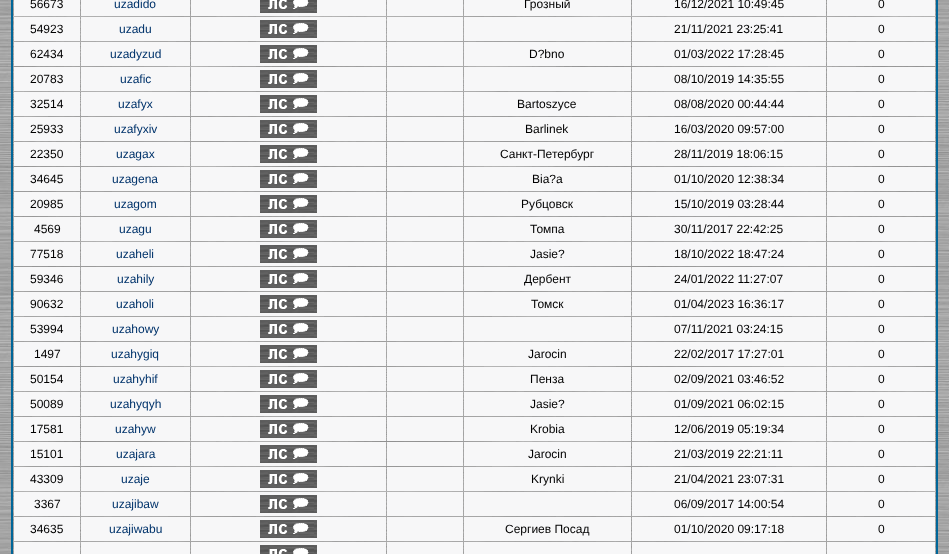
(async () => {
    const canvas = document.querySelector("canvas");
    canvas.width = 949;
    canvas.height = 554;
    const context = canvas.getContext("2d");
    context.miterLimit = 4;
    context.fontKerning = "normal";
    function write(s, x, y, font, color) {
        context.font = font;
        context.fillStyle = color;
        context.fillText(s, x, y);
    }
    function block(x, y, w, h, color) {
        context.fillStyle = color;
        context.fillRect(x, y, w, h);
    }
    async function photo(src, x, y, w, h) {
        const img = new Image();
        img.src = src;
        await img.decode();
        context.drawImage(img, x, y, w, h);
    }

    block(0, 0, 949, 554, "rgb(255, 255, 255)");
    await photo("media/1.png", 0, 0, 949, 554);
    context.strokeStyle = "rgb(0, 102, 153)";
    context.lineWidth = 2;
    context.strokeRect(12, -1, 925, 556);
    block(14, 0, 66, 16, "rgb(247, 247, 248)");
    write("56673", 30, 8, "12px Liberation Sans", "rgb(0, 0, 0)");
    block(81, 0, 109, 16, "rgb(247, 247, 248)");
    write("uzadido", 114, 8, "12px Liberation Sans", "rgb(1, 51, 107)");
    block(191, 0, 195, 16, "rgb(247, 247, 248)");
    await photo("media/2.png", 260, 0, 57, 13);
    block(387, 0, 76, 16, "rgb(247, 247, 248)");
    block(464, 0, 167, 16, "rgb(247, 247, 248)");
    write("Грозный", 524, 8, "12px Liberation Sans", "rgb(0, 0, 0)");
    block(632, 0, 194, 16, "rgb(247, 247, 248)");
    write("16/12/2021 10:49:45", 674, 8, "12px Liberation Sans", "rgb(0, 0, 0)");
    block(827, 0, 108, 16, "rgb(247, 247, 248)");
    write("0", 878, 8, "12px Liberation Sans", "rgb(0, 0, 0)");
    block(14, 17, 66, 24, "rgb(247, 247, 248)");
    write("54923", 30, 33, "12px Liberation Sans", "rgb(0, 0, 0)");
    block(81, 17, 109, 24, "rgb(247, 247, 248)");
    write("uzadu", 119, 33, "12px Liberation Sans", "rgb(1, 51, 107)");
    block(191, 17, 195, 24, "rgb(247, 247, 248)");
    await photo("media/3.png", 260, 20, 57, 18);
    block(387, 17, 76, 24, "rgb(247, 247, 248)");
    block(464, 17, 167, 24, "rgb(247, 247, 248)");
    block(632, 17, 194, 24, "rgb(247, 247, 248)");
    write("21/11/2021 23:25:41", 674, 33, "12px Liberation Sans", "rgb(0, 0, 0)");
    block(827, 17, 108, 24, "rgb(247, 247, 248)");
    write("0", 878, 33, "12px Liberation Sans", "rgb(0, 0, 0)");
    block(14, 42, 66, 24, "rgb(247, 247, 248)");
    write("62434", 30, 58, "12px Liberation Sans", "rgb(0, 0, 0)");
    block(81, 42, 109, 24, "rgb(247, 247, 248)");
    write("uzadyzud", 110, 58, "12px Liberation Sans", "rgb(1, 51, 107)");
    block(191, 42, 195, 24, "rgb(247, 247, 248)");
    await photo("media/3.png", 260, 45, 57, 18);
    block(387, 42, 76, 24, "rgb(247, 247, 248)");
    block(464, 42, 167, 24, "rgb(247, 247, 248)");
    write("D?bno", 529, 58, "12px Liberation Sans", "rgb(0, 0, 0)");
    block(632, 42, 194, 24, "rgb(247, 247, 248)");
    write("01/03/2022 17:28:45", 674, 58, "12px Liberation Sans", "rgb(0, 0, 0)");
    block(827, 42, 108, 24, "rgb(247, 247, 248)");
    write("0", 878, 58, "12px Liberation Sans", "rgb(0, 0, 0)");
    block(14, 67, 66, 24, "rgb(247, 247, 248)");
    write("20783", 30, 83, "12px Liberation Sans", "rgb(0, 0, 0)");
    block(81, 67, 109, 24, "rgb(247, 247, 248)");
    write("uzafic", 120, 83, "12px Liberation Sans", "rgb(1, 51, 107)");
    block(191, 67, 195, 24, "rgb(247, 247, 248)");
    await photo("media/3.png", 260, 70, 57, 18);
    block(387, 67, 76, 24, "rgb(247, 247, 248)");
    block(464, 67, 167, 24, "rgb(247, 247, 248)");
    block(632, 67, 194, 24, "rgb(247, 247, 248)");
    write("08/10/2019 14:35:55", 674, 83, "12px Liberation Sans", "rgb(0, 0, 0)");
    block(827, 67, 108, 24, "rgb(247, 247, 248)");
    write("0", 878, 83, "12px Liberation Sans", "rgb(0, 0, 0)");
    block(14, 92, 66, 24, "rgb(247, 247, 248)");
    write("32514", 30, 108, "12px Liberation Sans", "rgb(0, 0, 0)");
    block(81, 92, 109, 24, "rgb(247, 247, 248)");
    write("uzafyx", 118, 108, "12px Liberation Sans", "rgb(1, 51, 107)");
    block(191, 92, 195, 24, "rgb(247, 247, 248)");
    await photo("media/3.png", 260, 95, 57, 18);
    block(387, 92, 76, 24, "rgb(247, 247, 248)");
    block(464, 92, 167, 24, "rgb(247, 247, 248)");
    write("Bartoszyce", 517, 108, "12px Liberation Sans", "rgb(0, 0, 0)");
    block(632, 92, 194, 24, "rgb(247, 247, 248)");
    write("08/08/2020 00:44:44", 674, 108, "12px Liberation Sans", "rgb(0, 0, 0)");
    block(827, 92, 108, 24, "rgb(247, 247, 248)");
    write("0", 878, 108, "12px Liberation Sans", "rgb(0, 0, 0)");
    block(14, 117, 66, 24, "rgb(247, 247, 248)");
    write("25933", 30, 133, "12px Liberation Sans", "rgb(0, 0, 0)");
    block(81, 117, 109, 24, "rgb(247, 247, 248)");
    write("uzafyxiv", 114, 133, "12px Liberation Sans", "rgb(1, 51, 107)");
    block(191, 117, 195, 24, "rgb(247, 247, 248)");
    await photo("media/3.png", 260, 120, 57, 18);
    block(387, 117, 76, 24, "rgb(247, 247, 248)");
    block(464, 117, 167, 24, "rgb(247, 247, 248)");
    write("Barlinek", 525, 133, "12px Liberation Sans", "rgb(0, 0, 0)");
    block(632, 117, 194, 24, "rgb(247, 247, 248)");
    write("16/03/2020 09:57:00", 674, 133, "12px Liberation Sans", "rgb(0, 0, 0)");
    block(827, 117, 108, 24, "rgb(247, 247, 248)");
    write("0", 878, 133, "12px Liberation Sans", "rgb(0, 0, 0)");
    block(14, 142, 66, 24, "rgb(247, 247, 248)");
    write("22350", 30, 158, "12px Liberation Sans", "rgb(0, 0, 0)");
    block(81, 142, 109, 24, "rgb(247, 247, 248)");
    write("uzagax", 116, 158, "12px Liberation Sans", "rgb(1, 51, 107)");
    block(191, 142, 195, 24, "rgb(247, 247, 248)");
    await photo("media/3.png", 260, 145, 57, 18);
    block(387, 142, 76, 24, "rgb(247, 247, 248)");
    block(464, 142, 167, 24, "rgb(247, 247, 248)");
    write("Санкт-Петербург", 500, 158, "12px Liberation Sans", "rgb(0, 0, 0)");
    block(632, 142, 194, 24, "rgb(247, 247, 248)");
    write("28/11/2019 18:06:15", 674, 158, "12px Liberation Sans", "rgb(0, 0, 0)");
    block(827, 142, 108, 24, "rgb(247, 247, 248)");
    write("0", 878, 158, "12px Liberation Sans", "rgb(0, 0, 0)");
    block(14, 167, 66, 24, "rgb(247, 247, 248)");
    write("34645", 30, 183, "12px Liberation Sans", "rgb(0, 0, 0)");
    block(81, 167, 109, 24, "rgb(247, 247, 248)");
    write("uzagena", 112, 183, "12px Liberation Sans", "rgb(1, 51, 107)");
    block(191, 167, 195, 24, "rgb(247, 247, 248)");
    await photo("media/3.png", 260, 170, 57, 18);
    block(387, 167, 76, 24, "rgb(247, 247, 248)");
    block(464, 167, 167, 24, "rgb(247, 247, 248)");
    write("Bia?a", 532, 183, "12px Liberation Sans", "rgb(0, 0, 0)");
    block(632, 167, 194, 24, "rgb(247, 247, 248)");
    write("01/10/2020 12:38:34", 674, 183, "12px Liberation Sans", "rgb(0, 0, 0)");
    block(827, 167, 108, 24, "rgb(247, 247, 248)");
    write("0", 878, 183, "12px Liberation Sans", "rgb(0, 0, 0)");
    block(14, 192, 66, 24, "rgb(247, 247, 248)");
    write("20985", 30, 208, "12px Liberation Sans", "rgb(0, 0, 0)");
    block(81, 192, 109, 24, "rgb(247, 247, 248)");
    write("uzagom", 114, 208, "12px Liberation Sans", "rgb(1, 51, 107)");
    block(191, 192, 195, 24, "rgb(247, 247, 248)");
    await photo("media/3.png", 260, 195, 57, 18);
    block(387, 192, 76, 24, "rgb(247, 247, 248)");
    block(464, 192, 167, 24, "rgb(247, 247, 248)");
    write("Рубцовск", 521, 208, "12px Liberation Sans", "rgb(0, 0, 0)");
    block(632, 192, 194, 24, "rgb(247, 247, 248)");
    write("15/10/2019 03:28:44", 674, 208, "12px Liberation Sans", "rgb(0, 0, 0)");
    block(827, 192, 108, 24, "rgb(247, 247, 248)");
    write("0", 878, 208, "12px Liberation Sans", "rgb(0, 0, 0)");
    block(14, 217, 66, 24, "rgb(247, 247, 248)");
    write("4569", 34, 233, "12px Liberation Sans", "rgb(0, 0, 0)");
    block(81, 217, 109, 24, "rgb(247, 247, 248)");
    write("uzagu", 119, 233, "12px Liberation Sans", "rgb(1, 51, 107)");
    block(191, 217, 195, 24, "rgb(247, 247, 248)");
    await photo("media/3.png", 260, 220, 57, 18);
    block(387, 217, 76, 24, "rgb(247, 247, 248)");
    block(464, 217, 167, 24, "rgb(247, 247, 248)");
    write("Томпа", 530, 233, "12px Liberation Sans", "rgb(0, 0, 0)");
    block(632, 217, 194, 24, "rgb(247, 247, 248)");
    write("30/11/2017 22:42:25", 674, 233, "12px Liberation Sans", "rgb(0, 0, 0)");
    block(827, 217, 108, 24, "rgb(247, 247, 248)");
    write("0", 878, 233, "12px Liberation Sans", "rgb(0, 0, 0)");
    block(14, 242, 66, 24, "rgb(247, 247, 248)");
    write("77518", 30, 258, "12px Liberation Sans", "rgb(0, 0, 0)");
    block(81, 242, 109, 24, "rgb(247, 247, 248)");
    write("uzaheli", 116, 258, "12px Liberation Sans", "rgb(1, 51, 107)");
    block(191, 242, 195, 24, "rgb(247, 247, 248)");
    await photo("media/3.png", 260, 245, 57, 18);
    block(387, 242, 76, 24, "rgb(247, 247, 248)");
    block(464, 242, 167, 24, "rgb(247, 247, 248)");
    write("Jasie?", 530, 258, "12px Liberation Sans", "rgb(0, 0, 0)");
    block(632, 242, 194, 24, "rgb(247, 247, 248)");
    write("18/10/2022 18:47:24", 674, 258, "12px Liberation Sans", "rgb(0, 0, 0)");
    block(827, 242, 108, 24, "rgb(247, 247, 248)");
    write("0", 878, 258, "12px Liberation Sans", "rgb(0, 0, 0)");
    block(14, 267, 66, 24, "rgb(247, 247, 248)");
    write("59346", 30, 283, "12px Liberation Sans", "rgb(0, 0, 0)");
    block(81, 267, 109, 24, "rgb(247, 247, 248)");
    write("uzahily", 117, 283, "12px Liberation Sans", "rgb(1, 51, 107)");
    block(191, 267, 195, 24, "rgb(247, 247, 248)");
    await photo("media/3.png", 260, 270, 57, 18);
    block(387, 267, 76, 24, "rgb(247, 247, 248)");
    block(464, 267, 167, 24, "rgb(247, 247, 248)");
    write("Дербент", 524, 283, "12px Liberation Sans", "rgb(0, 0, 0)");
    block(632, 267, 194, 24, "rgb(247, 247, 248)");
    write("24/01/2022 11:27:07", 674, 283, "12px Liberation Sans", "rgb(0, 0, 0)");
    block(827, 267, 108, 24, "rgb(247, 247, 248)");
    write("0", 878, 283, "12px Liberation Sans", "rgb(0, 0, 0)");
    block(14, 292, 66, 24, "rgb(247, 247, 248)");
    write("90632", 30, 308, "12px Liberation Sans", "rgb(0, 0, 0)");
    block(81, 292, 109, 24, "rgb(247, 247, 248)");
    write("uzaholi", 116, 308, "12px Liberation Sans", "rgb(1, 51, 107)");
    block(191, 292, 195, 24, "rgb(247, 247, 248)");
    await photo("media/3.png", 260, 295, 57, 18);
    block(387, 292, 76, 24, "rgb(247, 247, 248)");
    block(464, 292, 167, 24, "rgb(247, 247, 248)");
    write("Томск", 531, 308, "12px Liberation Sans", "rgb(0, 0, 0)");
    block(632, 292, 194, 24, "rgb(247, 247, 248)");
    write("01/04/2023 16:36:17", 674, 308, "12px Liberation Sans", "rgb(0, 0, 0)");
    block(827, 292, 108, 24, "rgb(247, 247, 248)");
    write("0", 878, 308, "12px Liberation Sans", "rgb(0, 0, 0)");
    block(14, 317, 66, 24, "rgb(247, 247, 248)");
    write("53994", 30, 333, "12px Liberation Sans", "rgb(0, 0, 0)");
    block(81, 317, 109, 24, "rgb(247, 247, 248)");
    write("uzahowy", 112, 333, "12px Liberation Sans", "rgb(1, 51, 107)");
    block(191, 317, 195, 24, "rgb(247, 247, 248)");
    await photo("media/3.png", 260, 320, 57, 18);
    block(387, 317, 76, 24, "rgb(247, 247, 248)");
    block(464, 317, 167, 24, "rgb(247, 247, 248)");
    block(632, 317, 194, 24, "rgb(247, 247, 248)");
    write("07/11/2021 03:24:15", 674, 333, "12px Liberation Sans", "rgb(0, 0, 0)");
    block(827, 317, 108, 24, "rgb(247, 247, 248)");
    write("0", 878, 333, "12px Liberation Sans", "rgb(0, 0, 0)");
    block(14, 342, 66, 24, "rgb(247, 247, 248)");
    write("1497", 34, 358, "12px Liberation Sans", "rgb(0, 0, 0)");
    block(81, 342, 109, 24, "rgb(247, 247, 248)");
    write("uzahygiq", 111, 358, "12px Liberation Sans", "rgb(1, 51, 107)");
    block(191, 342, 195, 24, "rgb(247, 247, 248)");
    await photo("media/3.png", 260, 345, 57, 18);
    block(387, 342, 76, 24, "rgb(247, 247, 248)");
    block(464, 342, 167, 24, "rgb(247, 247, 248)");
    write("Jarocin", 528, 358, "12px Liberation Sans", "rgb(0, 0, 0)");
    block(632, 342, 194, 24, "rgb(247, 247, 248)");
    write("22/02/2017 17:27:01", 674, 358, "12px Liberation Sans", "rgb(0, 0, 0)");
    block(827, 342, 108, 24, "rgb(247, 247, 248)");
    write("0", 878, 358, "12px Liberation Sans", "rgb(0, 0, 0)");
    block(14, 367, 66, 24, "rgb(247, 247, 248)");
    write("50154", 30, 383, "12px Liberation Sans", "rgb(0, 0, 0)");
    block(81, 367, 109, 24, "rgb(247, 247, 248)");
    write("uzahyhif", 113, 383, "12px Liberation Sans", "rgb(1, 51, 107)");
    block(191, 367, 195, 24, "rgb(247, 247, 248)");
    await photo("media/3.png", 260, 370, 57, 18);
    block(387, 367, 76, 24, "rgb(247, 247, 248)");
    block(464, 367, 167, 24, "rgb(247, 247, 248)");
    write("Пенза", 530, 383, "12px Liberation Sans", "rgb(0, 0, 0)");
    block(632, 367, 194, 24, "rgb(247, 247, 248)");
    write("02/09/2021 03:46:52", 674, 383, "12px Liberation Sans", "rgb(0, 0, 0)");
    block(827, 367, 108, 24, "rgb(247, 247, 248)");
    write("0", 878, 383, "12px Liberation Sans", "rgb(0, 0, 0)");
    block(14, 392, 66, 24, "rgb(247, 247, 248)");
    write("50089", 30, 408, "12px Liberation Sans", "rgb(0, 0, 0)");
    block(81, 392, 109, 24, "rgb(247, 247, 248)");
    write("uzahyqyh", 110, 408, "12px Liberation Sans", "rgb(1, 51, 107)");
    block(191, 392, 195, 24, "rgb(247, 247, 248)");
    await photo("media/3.png", 260, 395, 57, 18);
    block(387, 392, 76, 24, "rgb(247, 247, 248)");
    block(464, 392, 167, 24, "rgb(247, 247, 248)");
    write("Jasie?", 530, 408, "12px Liberation Sans", "rgb(0, 0, 0)");
    block(632, 392, 194, 24, "rgb(247, 247, 248)");
    write("01/09/2021 06:02:15", 674, 408, "12px Liberation Sans", "rgb(0, 0, 0)");
    block(827, 392, 108, 24, "rgb(247, 247, 248)");
    write("0", 878, 408, "12px Liberation Sans", "rgb(0, 0, 0)");
    block(14, 417, 66, 24, "rgb(247, 247, 248)");
    write("17581", 30, 433, "12px Liberation Sans", "rgb(0, 0, 0)");
    block(81, 417, 109, 24, "rgb(247, 247, 248)");
    write("uzahyw", 115, 433, "12px Liberation Sans", "rgb(1, 51, 107)");
    block(191, 417, 195, 24, "rgb(247, 247, 248)");
    await photo("media/3.png", 260, 420, 57, 18);
    block(387, 417, 76, 24, "rgb(247, 247, 248)");
    block(464, 417, 167, 24, "rgb(247, 247, 248)");
    write("Krobia", 530, 433, "12px Liberation Sans", "rgb(0, 0, 0)");
    block(632, 417, 194, 24, "rgb(247, 247, 248)");
    write("12/06/2019 05:19:34", 674, 433, "12px Liberation Sans", "rgb(0, 0, 0)");
    block(827, 417, 108, 24, "rgb(247, 247, 248)");
    write("0", 878, 433, "12px Liberation Sans", "rgb(0, 0, 0)");
    block(14, 442, 66, 24, "rgb(247, 247, 248)");
    write("15101", 30, 458, "12px Liberation Sans", "rgb(0, 0, 0)");
    block(81, 442, 109, 24, "rgb(247, 247, 248)");
    write("uzajara", 116, 458, "12px Liberation Sans", "rgb(1, 51, 107)");
    block(191, 442, 195, 24, "rgb(247, 247, 248)");
    await photo("media/3.png", 260, 445, 57, 18);
    block(387, 442, 76, 24, "rgb(247, 247, 248)");
    block(464, 442, 167, 24, "rgb(247, 247, 248)");
    write("Jarocin", 528, 458, "12px Liberation Sans", "rgb(0, 0, 0)");
    block(632, 442, 194, 24, "rgb(247, 247, 248)");
    write("21/03/2019 22:21:11", 674, 458, "12px Liberation Sans", "rgb(0, 0, 0)");
    block(827, 442, 108, 24, "rgb(247, 247, 248)");
    write("0", 878, 458, "12px Liberation Sans", "rgb(0, 0, 0)");
    block(14, 467, 66, 24, "rgb(247, 247, 248)");
    write("43309", 30, 483, "12px Liberation Sans", "rgb(0, 0, 0)");
    block(81, 467, 109, 24, "rgb(247, 247, 248)");
    write("uzaje", 121, 483, "12px Liberation Sans", "rgb(1, 51, 107)");
    block(191, 467, 195, 24, "rgb(247, 247, 248)");
    await photo("media/3.png", 260, 470, 57, 18);
    block(387, 467, 76, 24, "rgb(247, 247, 248)");
    block(464, 467, 167, 24, "rgb(247, 247, 248)");
    write("Krynki", 531, 483, "12px Liberation Sans", "rgb(0, 0, 0)");
    block(632, 467, 194, 24, "rgb(247, 247, 248)");
    write("21/04/2021 23:07:31", 674, 483, "12px Liberation Sans", "rgb(0, 0, 0)");
    block(827, 467, 108, 24, "rgb(247, 247, 248)");
    write("0", 878, 483, "12px Liberation Sans", "rgb(0, 0, 0)");
    block(14, 492, 66, 24, "rgb(247, 247, 248)");
    write("3367", 34, 508, "12px Liberation Sans", "rgb(0, 0, 0)");
    block(81, 492, 109, 24, "rgb(247, 247, 248)");
    write("uzajibaw", 112, 508, "12px Liberation Sans", "rgb(1, 51, 107)");
    block(191, 492, 195, 24, "rgb(247, 247, 248)");
    await photo("media/3.png", 260, 495, 57, 18);
    block(387, 492, 76, 24, "rgb(247, 247, 248)");
    block(464, 492, 167, 24, "rgb(247, 247, 248)");
    block(632, 492, 194, 24, "rgb(247, 247, 248)");
    write("06/09/2017 14:00:54", 674, 508, "12px Liberation Sans", "rgb(0, 0, 0)");
    block(827, 492, 108, 24, "rgb(247, 247, 248)");
    write("0", 878, 508, "12px Liberation Sans", "rgb(0, 0, 0)");
    block(14, 517, 66, 24, "rgb(247, 247, 248)");
    write("34635", 30, 533, "12px Liberation Sans", "rgb(0, 0, 0)");
    block(81, 517, 109, 24, "rgb(247, 247, 248)");
    write("uzajiwabu", 109, 533, "12px Liberation Sans", "rgb(1, 51, 107)");
    block(191, 517, 195, 24, "rgb(247, 247, 248)");
    await photo("media/3.png", 260, 520, 57, 18);
    block(387, 517, 76, 24, "rgb(247, 247, 248)");
    block(464, 517, 167, 24, "rgb(247, 247, 248)");
    write("Сергиев Посад", 505, 533, "12px Liberation Sans", "rgb(0, 0, 0)");
    block(632, 517, 194, 24, "rgb(247, 247, 248)");
    write("01/10/2020 09:17:18", 674, 533, "12px Liberation Sans", "rgb(0, 0, 0)");
    block(827, 517, 108, 24, "rgb(247, 247, 248)");
    write("0", 878, 533, "12px Liberation Sans", "rgb(0, 0, 0)");
    block(14, 542, 66, 12, "rgb(247, 247, 248)");
    block(81, 542, 109, 12, "rgb(247, 247, 248)");
    block(191, 542, 195, 12, "rgb(247, 247, 248)");
    await photo("media/4.png", 260, 545, 57, 9);
    block(387, 542, 76, 12, "rgb(247, 247, 248)");
    block(464, 542, 167, 12, "rgb(247, 247, 248)");
    block(632, 542, 194, 12, "rgb(247, 247, 248)");
    block(827, 542, 108, 12, "rgb(247, 247, 248)");
})();
